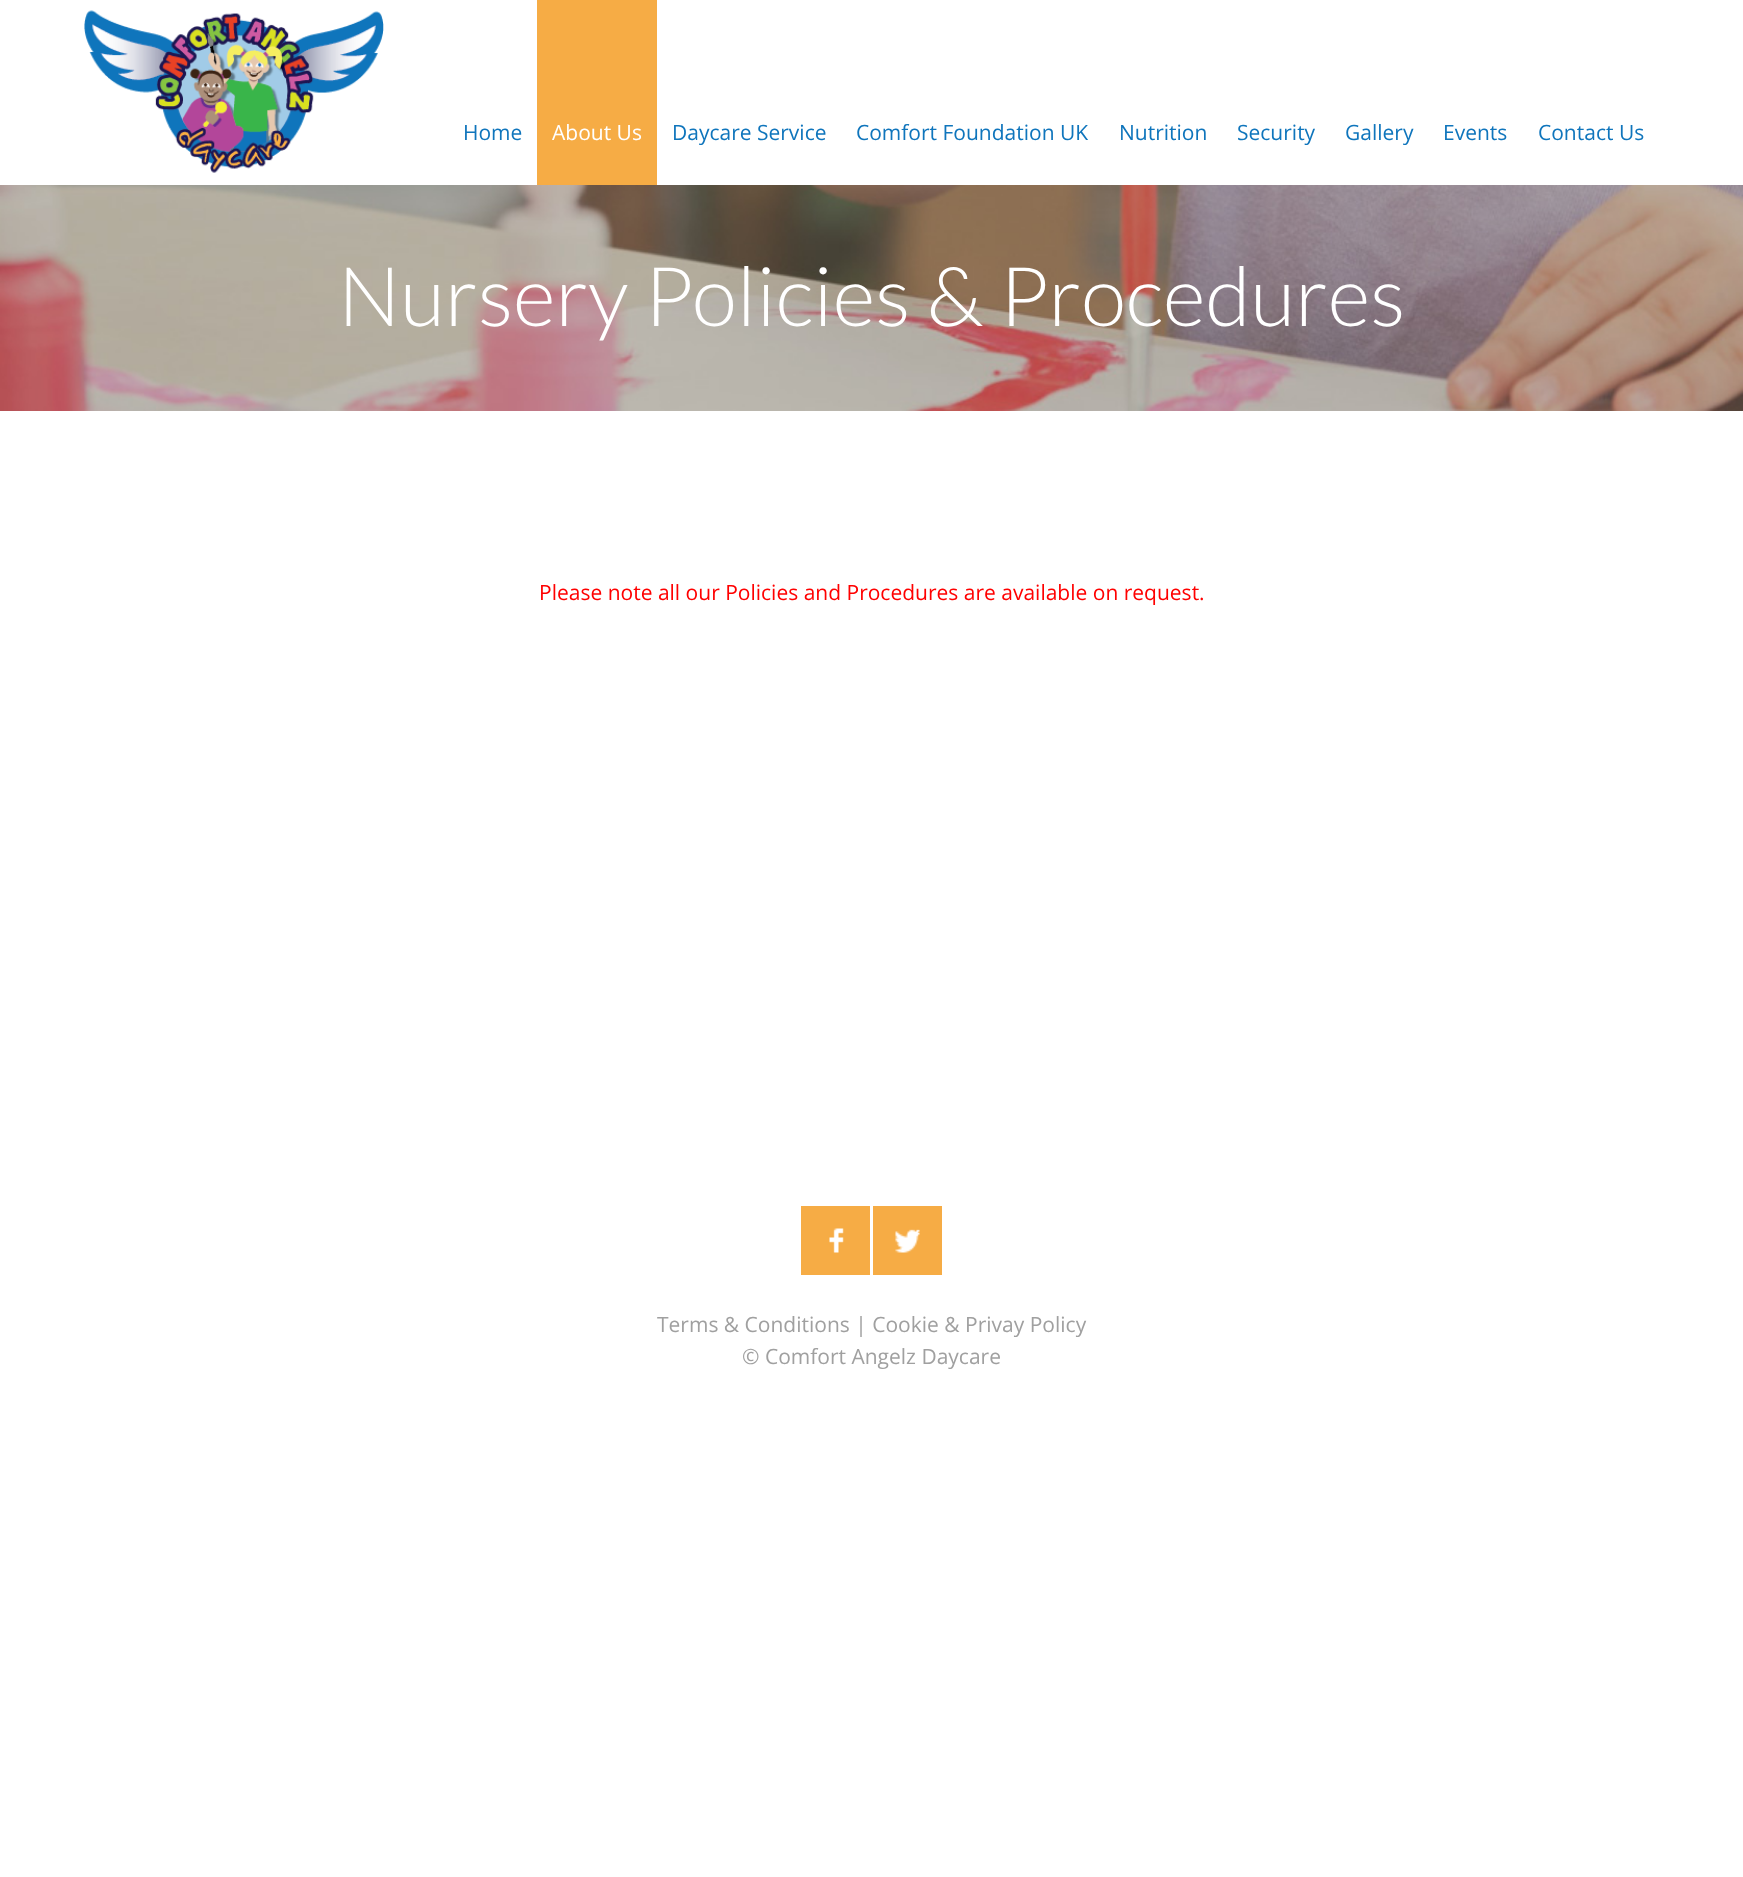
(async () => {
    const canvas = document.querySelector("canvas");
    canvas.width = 1743;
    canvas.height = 1877;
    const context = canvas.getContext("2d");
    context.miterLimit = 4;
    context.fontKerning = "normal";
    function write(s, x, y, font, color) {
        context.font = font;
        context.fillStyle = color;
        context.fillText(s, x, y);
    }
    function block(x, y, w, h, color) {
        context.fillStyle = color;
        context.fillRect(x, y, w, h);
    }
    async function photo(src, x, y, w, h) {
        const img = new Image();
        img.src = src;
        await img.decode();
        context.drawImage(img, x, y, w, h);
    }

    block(0, 0, 1743, 1877, "rgb(255, 255, 255)");
    await photo("media/1.png", 84, 10, 300, 163);
    write("Home", 463, 140, "21px Open Sans", "rgb(15, 117, 188)");
    block(537, 0, 120, 185, "rgb(246, 172, 69)");
    write("About Us", 552, 140, "21px Open Sans", "rgb(255, 255, 255)");
    write("Daycare Service", 672, 140, "21px Open Sans", "rgb(15, 117, 188)");
    write("Comfort Foundation UK", 856, 140, "21px Open Sans", "rgb(15, 117, 188)");
    write("Nutrition", 1119, 140, "21px Open Sans", "rgb(15, 117, 188)");
    write("Security", 1237, 140, "21px Open Sans", "rgb(15, 117, 188)");
    write("Gallery", 1345, 140, "21px Open Sans", "rgb(15, 117, 188)");
    write("Events", 1443, 140, "21px Open Sans", "rgb(15, 117, 188)");
    write("Contact Us", 1538, 140, "21px Open Sans", "rgb(15, 117, 188)");
    await photo("media/2.png", 0, 185, 1743, 226);
    write("Nursery Policies & Procedures", 338, 326, "300 82.5px Lato", "rgb(255, 255, 255)");
    write("Please note all our Policies and Procedures are available on request.", 539, 600, "21px Open Sans", "rgb(255, 0, 0)");
    block(801, 1206, 69, 69, "rgb(246, 172, 69)");
    await photo("media/3.png", 829, 1228, 15, 25);
    block(873, 1206, 69, 69, "rgb(246, 172, 69)");
    await photo("media/4.png", 895, 1229, 25, 24);
    write("Terms & Conditions | Cookie & Privay Policy", 657, 1332, "21px Open Sans", "rgb(160, 160, 160)");
    write("© Comfort Angelz Daycare", 742, 1364, "21px Open Sans", "rgb(160, 160, 160)");
})();
